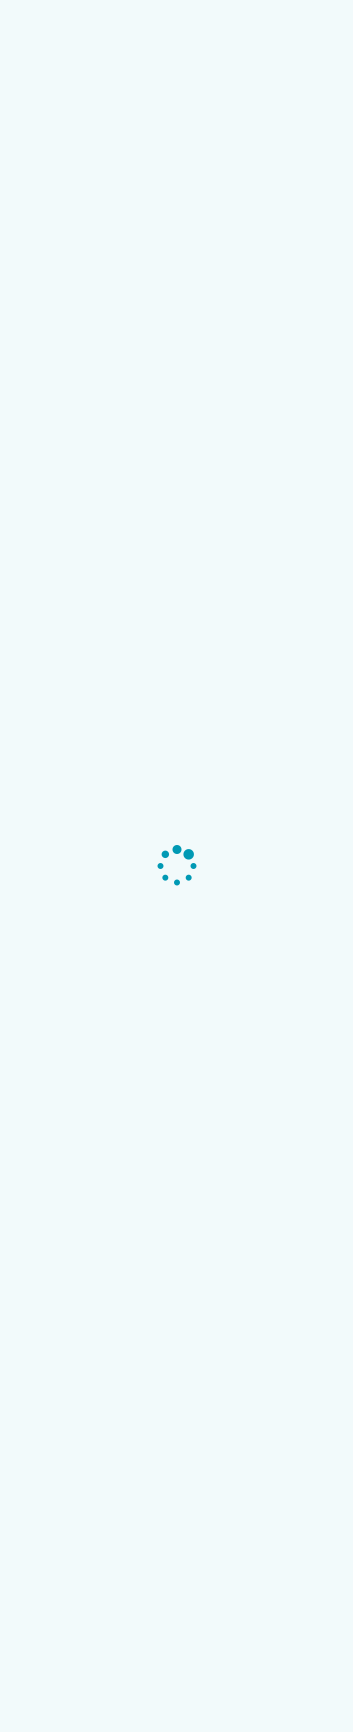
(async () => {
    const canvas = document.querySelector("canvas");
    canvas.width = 353;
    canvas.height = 1732;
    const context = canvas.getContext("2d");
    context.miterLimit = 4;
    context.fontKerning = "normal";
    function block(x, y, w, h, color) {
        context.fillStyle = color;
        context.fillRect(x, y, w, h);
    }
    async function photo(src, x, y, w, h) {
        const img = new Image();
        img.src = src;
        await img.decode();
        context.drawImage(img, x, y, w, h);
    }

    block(0, 0, 353, 1732, "rgb(242, 250, 251)");
    await photo("media/1.png", 157, 845, 40, 41);
})();
